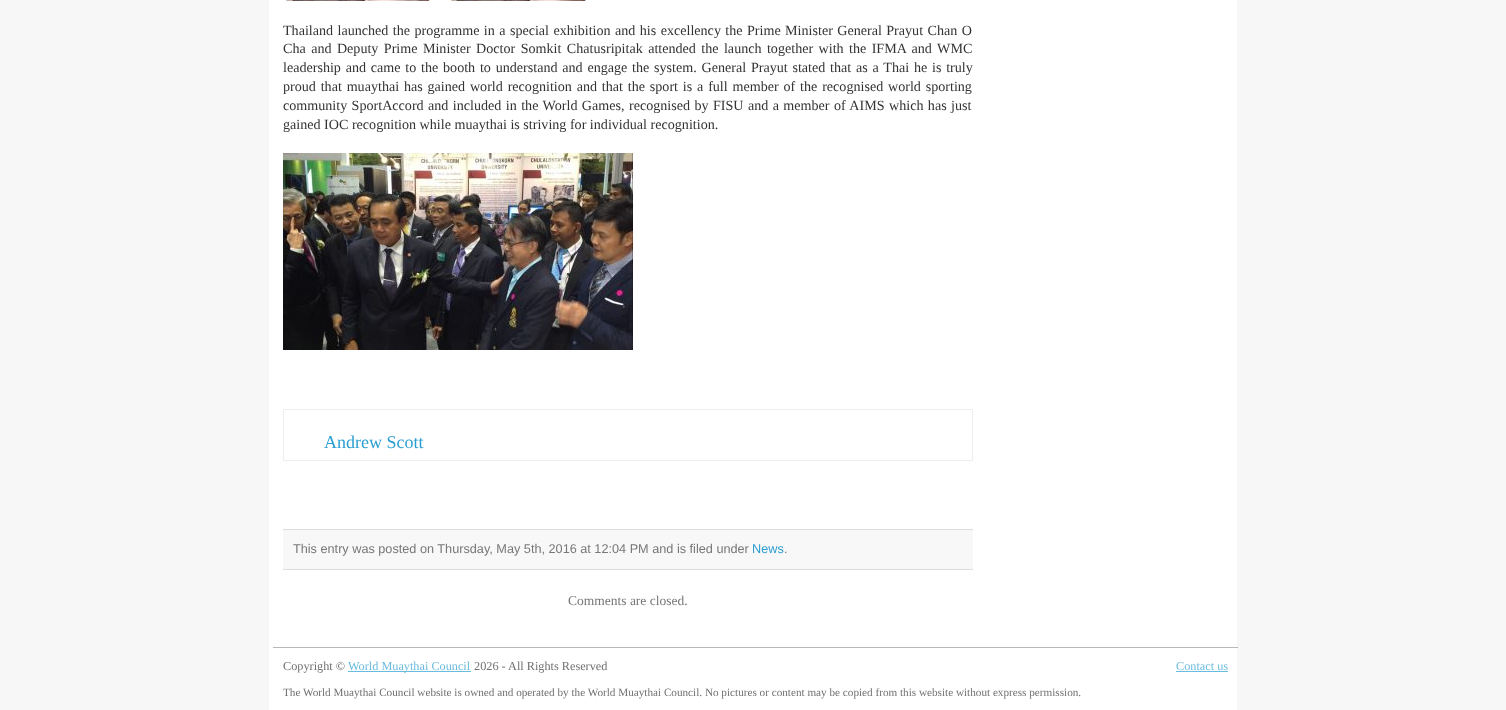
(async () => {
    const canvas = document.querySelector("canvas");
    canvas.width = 1506;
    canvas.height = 710;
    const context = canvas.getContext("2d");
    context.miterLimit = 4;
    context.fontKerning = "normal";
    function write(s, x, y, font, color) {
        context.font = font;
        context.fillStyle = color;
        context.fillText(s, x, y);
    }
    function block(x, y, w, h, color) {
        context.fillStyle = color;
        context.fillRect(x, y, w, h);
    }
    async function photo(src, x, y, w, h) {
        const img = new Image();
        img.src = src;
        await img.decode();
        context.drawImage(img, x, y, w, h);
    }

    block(0, 0, 1506, 710, "rgb(247, 247, 247)");
    block(1237, 647, 1, 1, "rgb(181, 181, 181)");
    block(269, 0, 968, 710, "rgb(255, 255, 255)");
    block(273, 647, 964, 1, "rgb(184, 184, 184)");
    await photo("media/1.png", 283, 0, 304, 1);
    context.wordSpacing = "0.9px";
    write("Thailand launched the programme in a special exhibition and his excellency the Prime Minister General Prayut Chan O", 283, 35, "14.1px Liberation Serif", "rgb(51, 51, 51)");
    context.wordSpacing = "1.9px";
    write("Cha and Deputy Prime Minister Doctor Somkit Chatusripitak attended the launch together with the IFMA and WMC", 283, 53, "14.1px Liberation Serif", "rgb(51, 51, 51)");
    context.wordSpacing = "1.25px";
    write("leadership and came to the booth to understand and engage the system. General Prayut stated that as a Thai he is truly", 283, 72, "14.1px Liberation Serif", "rgb(51, 51, 51)");
    context.wordSpacing = "1.3px";
    write("proud that muaythai has gained world recognition and that the sport is a full member of the recognised world sporting", 283, 91, "14.1px Liberation Serif", "rgb(51, 51, 51)");
    context.wordSpacing = "0.9px";
    write("community SportAccord and included in the World Games, recognised by FISU and a member of AIMS which has just", 283, 110, "14.1px Liberation Serif", "rgb(51, 51, 51)");
    context.wordSpacing = "0px";
    write("gained IOC recognition while muaythai is striving for individual recognition.", 283, 129, "14.1px Liberation Serif", "rgb(51, 51, 51)");
    await photo("media/2.png", 283, 153, 350, 197);
    context.strokeStyle = "rgb(238, 238, 238)";
    context.strokeRect(283.5, 409.5, 689, 51);
    write("Andrew Scott", 324, 448, "18px Liberation Serif", "rgb(43, 158, 209)");
    block(283, 530, 690, 39, "rgb(248, 248, 248)");
    block(283, 529, 690, 1, "rgb(221, 221, 221)");
    block(283, 569, 690, 1, "rgb(221, 221, 221)");
    write("This entry was posted on Thursday, May 5th, 2016 at 12:04 PM and is filed under", 293, 553, "12.7px Liberation Sans", "rgb(119, 119, 119)");
    write("News", 752, 553, "12.7px Liberation Sans", "rgb(43, 158, 209)");
    write(".", 784, 553, "12.7px Liberation Sans", "rgb(119, 119, 119)");
    write("Comments are closed.", 568, 605, "13.5px Liberation Serif", "rgb(119, 119, 119)");
    write("Copyright ©", 283, 670, "12.25px Liberation Serif", "rgb(112, 112, 112)");
    block(348, 671, 123, 1, "rgb(107, 187, 223)");
    write("World Muaythai Council", 348, 670, "12.25px Liberation Serif", "rgb(107, 187, 223)");
    write("2026 - All Rights Reserved", 474, 670, "12.25px Liberation Serif", "rgb(112, 112, 112)");
    write("Contact us", 1176, 670, "12.25px Liberation Serif", "rgb(107, 187, 223)");
    block(1176, 671, 52, 1, "rgb(107, 187, 223)");
    write("The World Muaythai Council website is owned and operated by the World Muaythai Council. No pictures or content may be copied from this website without express permission.", 283, 696, "11.2px Liberation Serif", "rgb(112, 112, 112)");
})();
